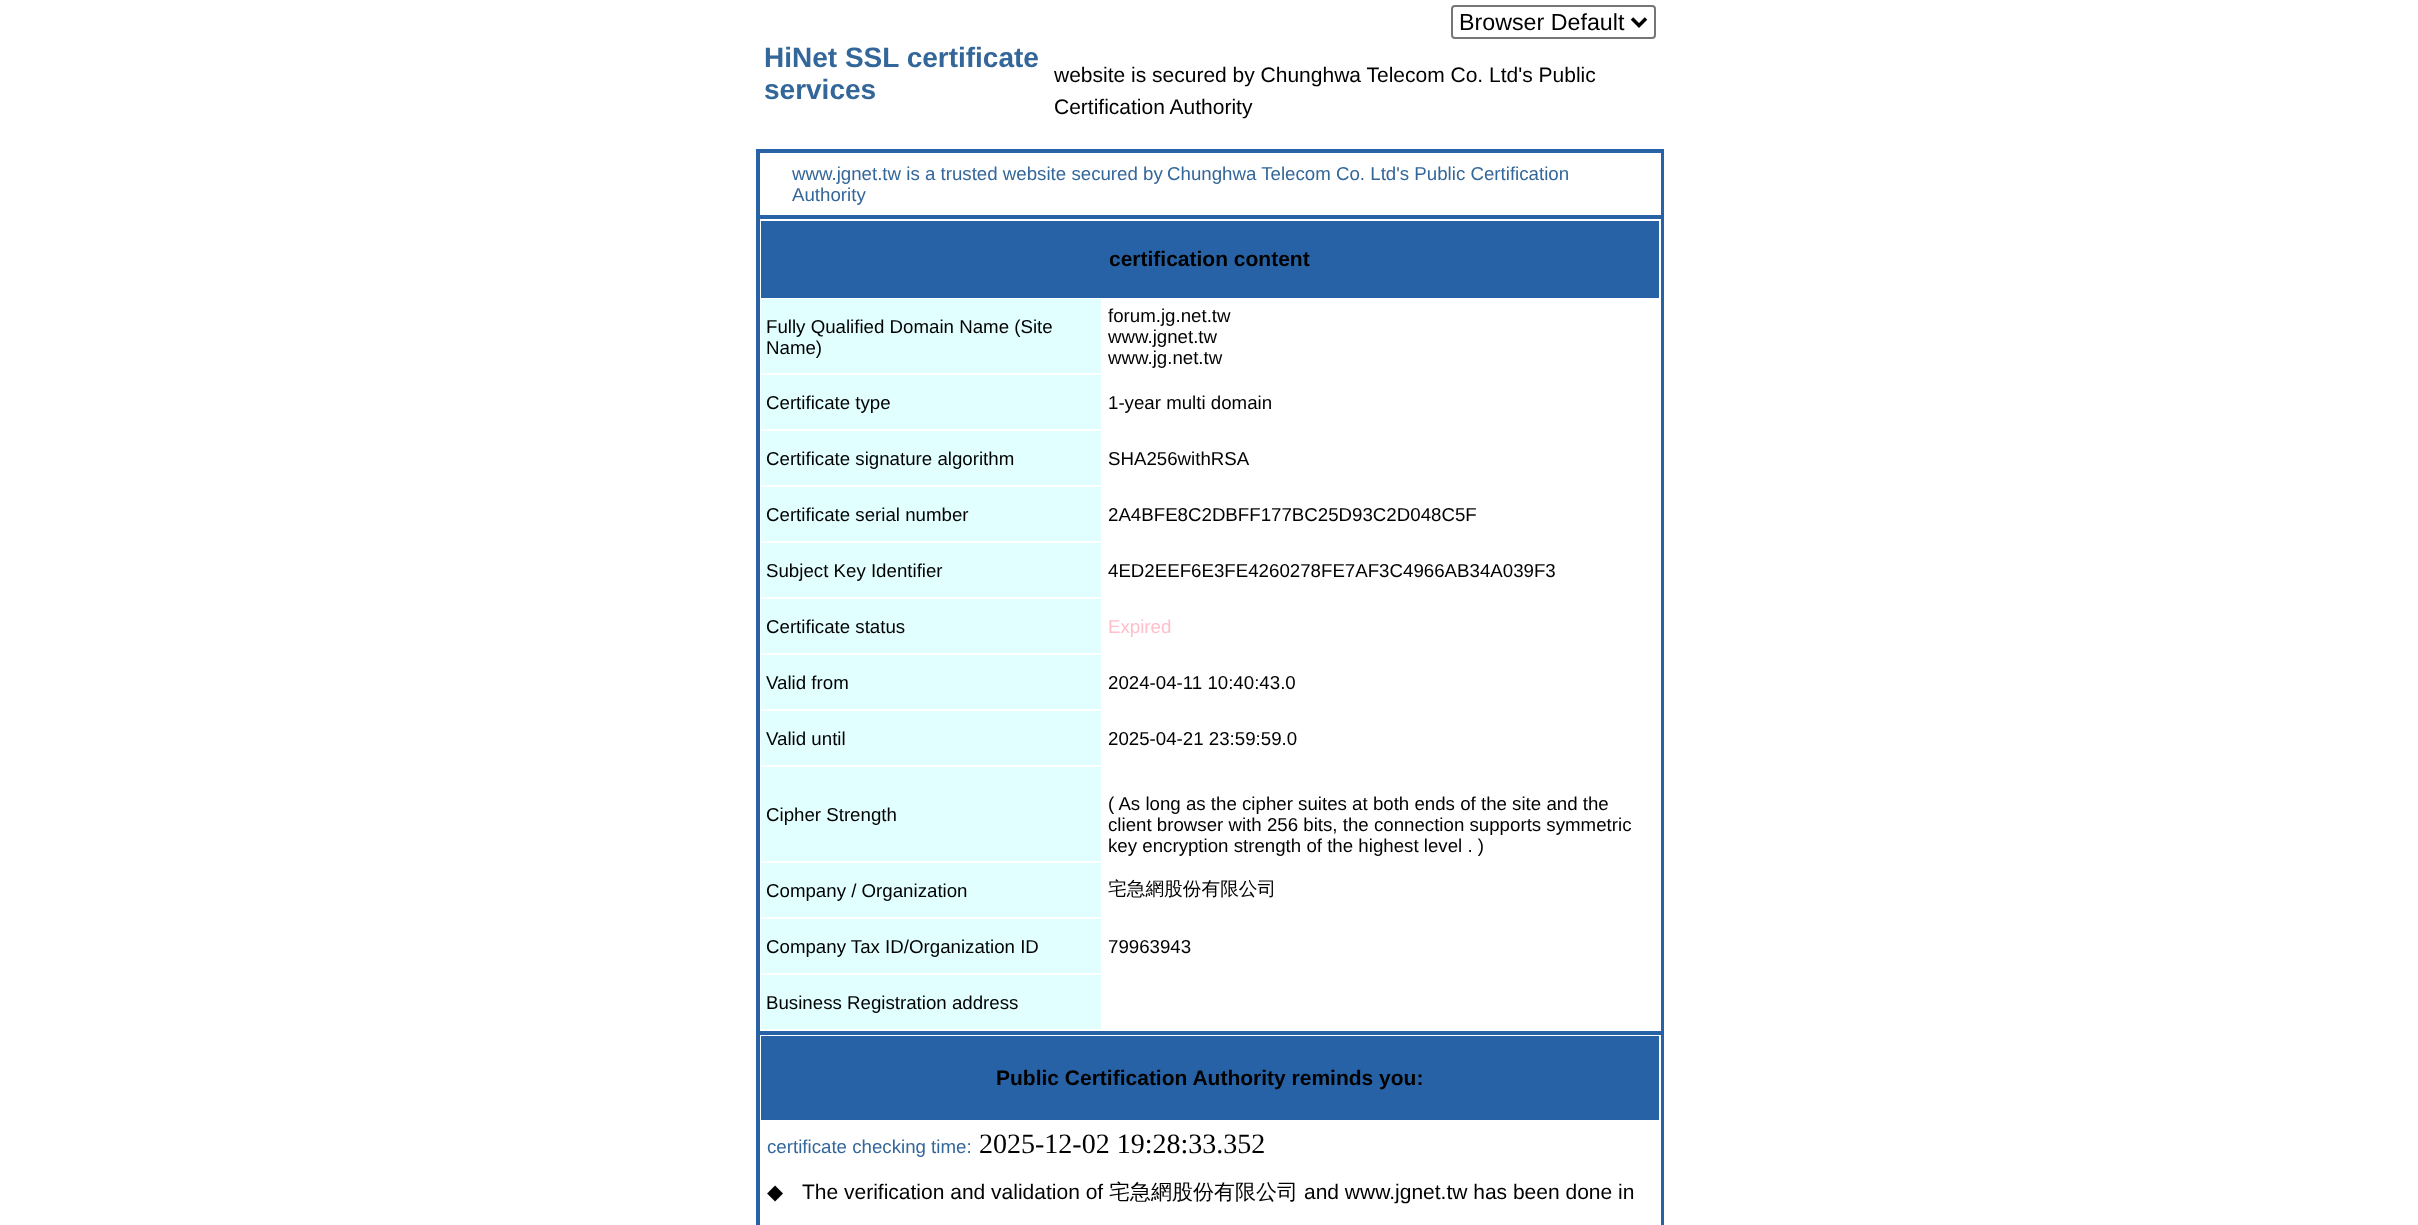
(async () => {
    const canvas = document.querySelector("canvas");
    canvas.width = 2418;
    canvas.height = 1225;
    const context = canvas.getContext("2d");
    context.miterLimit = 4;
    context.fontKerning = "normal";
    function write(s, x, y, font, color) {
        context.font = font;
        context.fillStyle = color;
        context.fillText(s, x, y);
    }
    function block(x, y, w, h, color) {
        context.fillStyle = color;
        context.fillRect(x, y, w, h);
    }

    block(0, 0, 2418, 1225, "rgb(255, 255, 255)");
    write("HiNet SSL certificate", 764, 67, "bold 28px Liberation Sans", "rgb(51, 102, 153)");
    write("services", 764, 99, "bold 28px Liberation Sans", "rgb(51, 102, 153)");
    context.beginPath();
    context.roundRect(1452, 6, 203, 32, 3);
    context.strokeStyle = "rgb(118, 118, 118)";
    context.lineWidth = 2;
    context.stroke();
    context.beginPath();
    context.moveTo(1632, 18.5);
    context.lineTo(1639, 25.5);
    context.lineTo(1646, 18.5);
    context.strokeStyle = "rgb(0, 0, 0)";
    context.lineWidth = 3.5;
    context.stroke();
    write("Browser Default", 1459, 30, "23.25px Liberation Sans", "rgb(0, 0, 0)");
    write("website is secured by Chunghwa Telecom Co. Ltd's Public", 1054, 82, "21px Liberation Sans", "rgb(0, 0, 0)");
    write("Certification Authority", 1054, 114, "21px Liberation Sans", "rgb(0, 0, 0)");
    context.strokeStyle = "rgb(38, 98, 165)";
    context.lineWidth = 2;
    context.strokeRect(757, 150, 906, 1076);
    context.strokeRect(759, 152, 903, 64);
    write("www.jgnet.tw is a trusted website secured by", 792, 180, "18.7px Liberation Sans", "rgb(51, 102, 153)");
    write("Chunghwa Telecom Co. Ltd's Public Certification", 1167, 180, "18.7px Liberation Sans", "rgb(51, 102, 153)");
    write("Authority", 792, 201, "18.7px Liberation Sans", "rgb(51, 102, 153)");
    context.strokeRect(759, 218, 903, 814);
    block(761, 221, 898, 77, "rgb(38, 98, 165)");
    write("certification content", 1109, 266, "bold 21px Liberation Sans", "rgb(0, 0, 0)");
    block(761, 299, 340, 74, "rgb(226, 255, 255)");
    write("Fully Qualified Domain Name (Site", 766, 333, "18.7px Liberation Sans", "rgb(0, 0, 0)");
    write("Name)", 766, 354, "18.7px Liberation Sans", "rgb(0, 0, 0)");
    write("forum.jg.net.tw", 1108, 322, "18.7px Liberation Sans", "rgb(0, 0, 0)");
    write("www.jgnet.tw", 1108, 343, "18.7px Liberation Sans", "rgb(0, 0, 0)");
    write("www.jg.net.tw", 1108, 364, "18.7px Liberation Sans", "rgb(0, 0, 0)");
    block(761, 375, 340, 54, "rgb(226, 255, 255)");
    write("Certificate type", 766, 409, "18.7px Liberation Sans", "rgb(0, 0, 0)");
    write("1-year multi domain", 1108, 409, "18.7px Liberation Sans", "rgb(0, 0, 0)");
    block(761, 431, 340, 54, "rgb(226, 255, 255)");
    write("Certificate signature algorithm", 766, 465, "18.7px Liberation Sans", "rgb(0, 0, 0)");
    write("SHA256withRSA", 1108, 465, "18.7px Liberation Sans", "rgb(0, 0, 0)");
    block(761, 487, 340, 54, "rgb(226, 255, 255)");
    write("Certificate serial number", 766, 521, "18.7px Liberation Sans", "rgb(0, 0, 0)");
    write("2A4BFE8C2DBFF177BC25D93C2D048C5F", 1108, 521, "18.7px Liberation Sans", "rgb(0, 0, 0)");
    block(761, 543, 340, 54, "rgb(226, 255, 255)");
    write("Subject Key Identifier", 766, 577, "18.7px Liberation Sans", "rgb(0, 0, 0)");
    write("4ED2EEF6E3FE4260278FE7AF3C4966AB34A039F3", 1108, 577, "18.7px Liberation Sans", "rgb(0, 0, 0)");
    block(761, 599, 340, 54, "rgb(226, 255, 255)");
    write("Certificate status", 766, 633, "18.7px Liberation Sans", "rgb(0, 0, 0)");
    write("Expired", 1108, 633, "18.7px Liberation Sans", "rgb(255, 192, 203)");
    block(761, 655, 340, 54, "rgb(226, 255, 255)");
    write("Valid from", 766, 689, "18.7px Liberation Sans", "rgb(0, 0, 0)");
    write("2024-04-11 10:40:43.0", 1108, 689, "18.7px Liberation Sans", "rgb(0, 0, 0)");
    block(761, 711, 340, 54, "rgb(226, 255, 255)");
    write("Valid until", 766, 745, "18.7px Liberation Sans", "rgb(0, 0, 0)");
    write("2025-04-21 23:59:59.0", 1108, 745, "18.7px Liberation Sans", "rgb(0, 0, 0)");
    block(761, 767, 340, 94, "rgb(226, 255, 255)");
    write("Cipher Strength", 766, 821, "18.7px Liberation Sans", "rgb(0, 0, 0)");
    write("( As long as the cipher suites at both ends of the site and the", 1108, 810, "18.7px Liberation Sans", "rgb(0, 0, 0)");
    write("client browser with 256 bits, the connection supports symmetric", 1108, 831, "18.7px Liberation Sans", "rgb(0, 0, 0)");
    write("key encryption strength of the highest level . )", 1108, 852, "18.7px Liberation Sans", "rgb(0, 0, 0)");
    block(761, 863, 340, 54, "rgb(226, 255, 255)");
    write("Company / Organization", 766, 897, "18.7px Liberation Sans", "rgb(0, 0, 0)");
    write("宅急網股份有限公司", 1108, 895, "500 18.7px WenQuanYi Zen Hei", "rgb(0, 0, 0)");
    block(761, 919, 340, 54, "rgb(226, 255, 255)");
    write("Company Tax ID/Organization ID", 766, 953, "18.7px Liberation Sans", "rgb(0, 0, 0)");
    write("79963943", 1108, 953, "18.7px Liberation Sans", "rgb(0, 0, 0)");
    block(761, 975, 340, 54, "rgb(226, 255, 255)");
    write("Business Registration address", 766, 1009, "18.7px Liberation Sans", "rgb(0, 0, 0)");
    context.strokeRect(759, 1034, 903, 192);
    block(761, 1036, 898, 84, "rgb(38, 98, 165)");
    write("Public Certification Authority reminds you:", 996, 1085, "bold 21px Liberation Sans", "rgb(0, 0, 0)");
    write("certificate checking time:", 767, 1153, "18.7px Liberation Sans", "rgb(51, 102, 153)");
    write("2025-12-02 19:28:33.352", 979, 1153, "28px Liberation Serif", "rgb(0, 0, 0)");
    write("◆", 767, 1199, "21px DejaVu Sans", "rgb(0, 0, 0)");
    write("The verification and validation of", 802, 1199, "21px Liberation Sans", "rgb(0, 0, 0)");
    write("宅急網股份有限公司", 1109, 1199, "500 21px WenQuanYi Zen Hei", "rgb(0, 0, 0)");
    write("and www.jgnet.tw has been done in", 1304, 1199, "21px Liberation Sans", "rgb(0, 0, 0)");
})();
